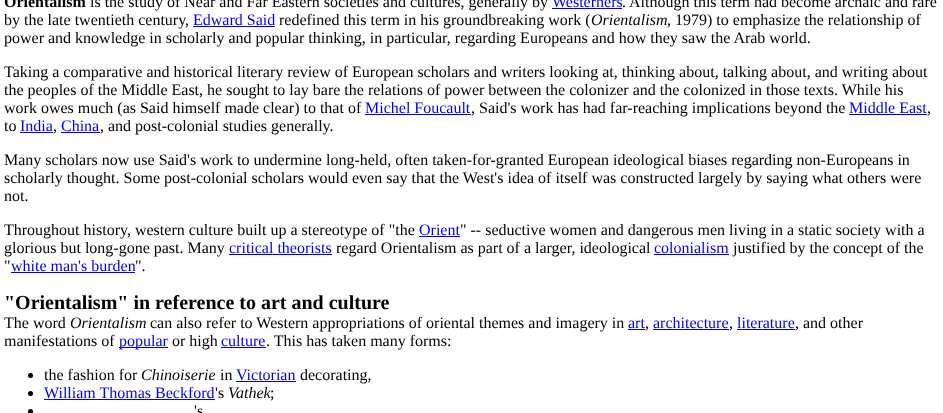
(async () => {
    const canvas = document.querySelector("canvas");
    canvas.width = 943;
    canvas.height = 413;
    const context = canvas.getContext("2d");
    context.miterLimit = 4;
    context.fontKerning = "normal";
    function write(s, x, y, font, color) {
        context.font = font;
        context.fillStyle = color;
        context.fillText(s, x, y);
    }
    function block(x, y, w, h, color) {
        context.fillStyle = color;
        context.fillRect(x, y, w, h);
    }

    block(0, 0, 943, 413, "rgb(255, 255, 255)");
    write("Orientalism", 4, 7, "bold 16px Liberation Serif", "rgb(0, 0, 0)");
    write("is the study of Near and Far Eastern societies and cultures, generally by", 90, 7, "16px Liberation Serif", "rgb(0, 0, 0)");
    write("Westerners", 552, 7, "16px Liberation Serif", "rgb(0, 0, 238)");
    block(552, 8, 70, 1, "rgb(0, 0, 238)");
    write(".", 622, 7, "16px Liberation Serif", "rgb(0, 0, 0)");
    write("Although this term had become archaic and rare", 629, 7, "16px Liberation Serif", "rgb(0, 0, 0)");
    write("by the late twentieth century,", 4, 25, "16px Liberation Serif", "rgb(0, 0, 0)");
    write("Edward Said", 193, 25, "16px Liberation Serif", "rgb(0, 0, 238)");
    block(193, 26, 82, 1, "rgb(0, 0, 238)");
    write("redefined this term in his groundbreaking work (", 279, 25, "16px Liberation Serif", "rgb(0, 0, 0)");
    write("Orientalism", 591, 25, "italic 16px Liberation Serif", "rgb(0, 0, 0)");
    write(", 1979) to emphasize the relationship of", 667, 25, "16px Liberation Serif", "rgb(0, 0, 0)");
    write("power and knowledge in scholarly and popular thinking, in particular, regarding Europeans and how they saw the Arab world.", 4, 43, "16px Liberation Serif", "rgb(0, 0, 0)");
    write("Taking a comparative and historical literary review of European scholars and writers looking at, thinking about, talking about, and writing about", 4, 77, "16px Liberation Serif", "rgb(0, 0, 0)");
    write("the peoples of the Middle East, he sought to lay bare the relations of power between the colonizer and the colonized in those texts. While his", 4, 95, "16px Liberation Serif", "rgb(0, 0, 0)");
    write("work owes much (as Said himself made clear) to that of", 4, 113, "16px Liberation Serif", "rgb(0, 0, 0)");
    write("Michel Foucault", 365, 113, "16px Liberation Serif", "rgb(0, 0, 238)");
    block(365, 114, 106, 1, "rgb(0, 0, 238)");
    write(", Said's work has had far-reaching implications beyond the", 471, 113, "16px Liberation Serif", "rgb(0, 0, 0)");
    write("Middle East", 849, 113, "16px Liberation Serif", "rgb(0, 0, 238)");
    block(849, 114, 78, 1, "rgb(0, 0, 238)");
    write(",", 927, 113, "16px Liberation Serif", "rgb(0, 0, 0)");
    write("to", 4, 131, "16px Liberation Serif", "rgb(0, 0, 0)");
    write("India", 20, 131, "16px Liberation Serif", "rgb(0, 0, 238)");
    block(20, 132, 33, 1, "rgb(0, 0, 238)");
    write(",", 53, 131, "16px Liberation Serif", "rgb(0, 0, 0)");
    write("China", 61, 131, "16px Liberation Serif", "rgb(0, 0, 238)");
    block(61, 132, 39, 1, "rgb(0, 0, 238)");
    write(", and post-colonial studies generally.", 100, 131, "16px Liberation Serif", "rgb(0, 0, 0)");
    write("Many scholars now use Said's work to undermine long-held, often taken-for-granted European ideological biases regarding non-Europeans in", 4, 165, "16px Liberation Serif", "rgb(0, 0, 0)");
    write("scholarly thought. Some post-colonial scholars would even say that the West's idea of itself was constructed largely by saying what others were", 4, 183, "16px Liberation Serif", "rgb(0, 0, 0)");
    write("not.", 4, 201, "16px Liberation Serif", "rgb(0, 0, 0)");
    write("Throughout history, western culture built up a stereotype of \"the", 4, 235, "16px Liberation Serif", "rgb(0, 0, 0)");
    write("Orient", 419, 235, "16px Liberation Serif", "rgb(0, 0, 238)");
    block(419, 236, 41, 1, "rgb(0, 0, 238)");
    write("\" -- seductive women and dangerous men living in a static society with a", 460, 235, "16px Liberation Serif", "rgb(0, 0, 0)");
    write("glorious but long-gone past. Many", 4, 253, "16px Liberation Serif", "rgb(0, 0, 0)");
    write("critical theorists", 229, 253, "16px Liberation Serif", "rgb(0, 0, 238)");
    block(229, 254, 103, 1, "rgb(0, 0, 238)");
    write("regard Orientalism as part of a larger, ideological", 336, 253, "16px Liberation Serif", "rgb(0, 0, 0)");
    write("colonialism", 654, 253, "16px Liberation Serif", "rgb(0, 0, 238)");
    block(654, 254, 75, 1, "rgb(0, 0, 238)");
    write("justified by the concept of the", 733, 253, "16px Liberation Serif", "rgb(0, 0, 0)");
    write("\"", 4, 271, "16px Liberation Serif", "rgb(0, 0, 0)");
    write("white man's burden", 11, 271, "16px Liberation Serif", "rgb(0, 0, 238)");
    block(11, 272, 124, 1, "rgb(0, 0, 238)");
    write("\".", 135, 271, "16px Liberation Serif", "rgb(0, 0, 0)");
    write("\"Orientalism\" in reference to art and culture", 4, 309, "bold 20px Liberation Serif", "rgb(0, 0, 0)");
    write("The word", 4, 328, "16px Liberation Serif", "rgb(0, 0, 0)");
    write("Orientalism", 70, 328, "italic 16px Liberation Serif", "rgb(0, 0, 0)");
    write("can also refer to Western appropriations of oriental themes and imagery in", 150, 328, "16px Liberation Serif", "rgb(0, 0, 0)");
    write("art", 628, 328, "16px Liberation Serif", "rgb(0, 0, 238)");
    block(628, 329, 17, 1, "rgb(0, 0, 238)");
    write(",", 645, 328, "16px Liberation Serif", "rgb(0, 0, 0)");
    write("architecture", 653, 328, "16px Liberation Serif", "rgb(0, 0, 238)");
    block(653, 329, 76, 1, "rgb(0, 0, 238)");
    write(",", 729, 328, "16px Liberation Serif", "rgb(0, 0, 0)");
    write("literature", 737, 328, "16px Liberation Serif", "rgb(0, 0, 238)");
    block(737, 329, 58, 1, "rgb(0, 0, 238)");
    write(", and other", 795, 328, "16px Liberation Serif", "rgb(0, 0, 0)");
    write("manifestations of", 4, 346, "16px Liberation Serif", "rgb(0, 0, 0)");
    block(119, 347, 49, 1, "rgb(0, 0, 238)");
    write("popular", 119, 346, "16px Liberation Serif", "rgb(0, 0, 238)");
    write("or high", 172, 346, "16px Liberation Serif", "rgb(0, 0, 0)");
    write("culture", 221, 346, "16px Liberation Serif", "rgb(0, 0, 238)");
    block(221, 347, 45, 1, "rgb(0, 0, 238)");
    write(". This has taken many forms:", 266, 346, "16px Liberation Serif", "rgb(0, 0, 0)");
    context.beginPath();
    context.arc(30.5, 375.5, 2.5, 0, Math.PI * 2);
    context.fill();
    write("the fashion for", 44, 380, "16px Liberation Serif", "rgb(0, 0, 0)");
    write("Chinoiserie", 141, 380, "italic 16px Liberation Serif", "rgb(0, 0, 0)");
    write("in", 220, 380, "16px Liberation Serif", "rgb(0, 0, 0)");
    write("Victorian", 236, 380, "16px Liberation Serif", "rgb(0, 0, 238)");
    block(236, 381, 60, 1, "rgb(0, 0, 238)");
    write("decorating,", 300, 380, "16px Liberation Serif", "rgb(0, 0, 0)");
    context.beginPath();
    context.arc(30.5, 393.5, 2.5, 0, Math.PI * 2);
    context.fill();
    write("William Thomas Beckford", 44, 398, "16px Liberation Serif", "rgb(0, 0, 238)");
    block(44, 399, 171, 1, "rgb(0, 0, 238)");
    write("'s", 215, 398, "16px Liberation Serif", "rgb(0, 0, 0)");
    write("Vathek", 228, 398, "italic 16px Liberation Serif", "rgb(0, 0, 0)");
    write(";", 270, 398, "16px Liberation Serif", "rgb(0, 0, 0)");
    context.beginPath();
    context.arc(30.5, 411.5, 2.5, 0, Math.PI * 2);
    context.fill();
    write("'s", 194, 416, "16px Liberation Serif", "rgb(0, 0, 0)");
})();
